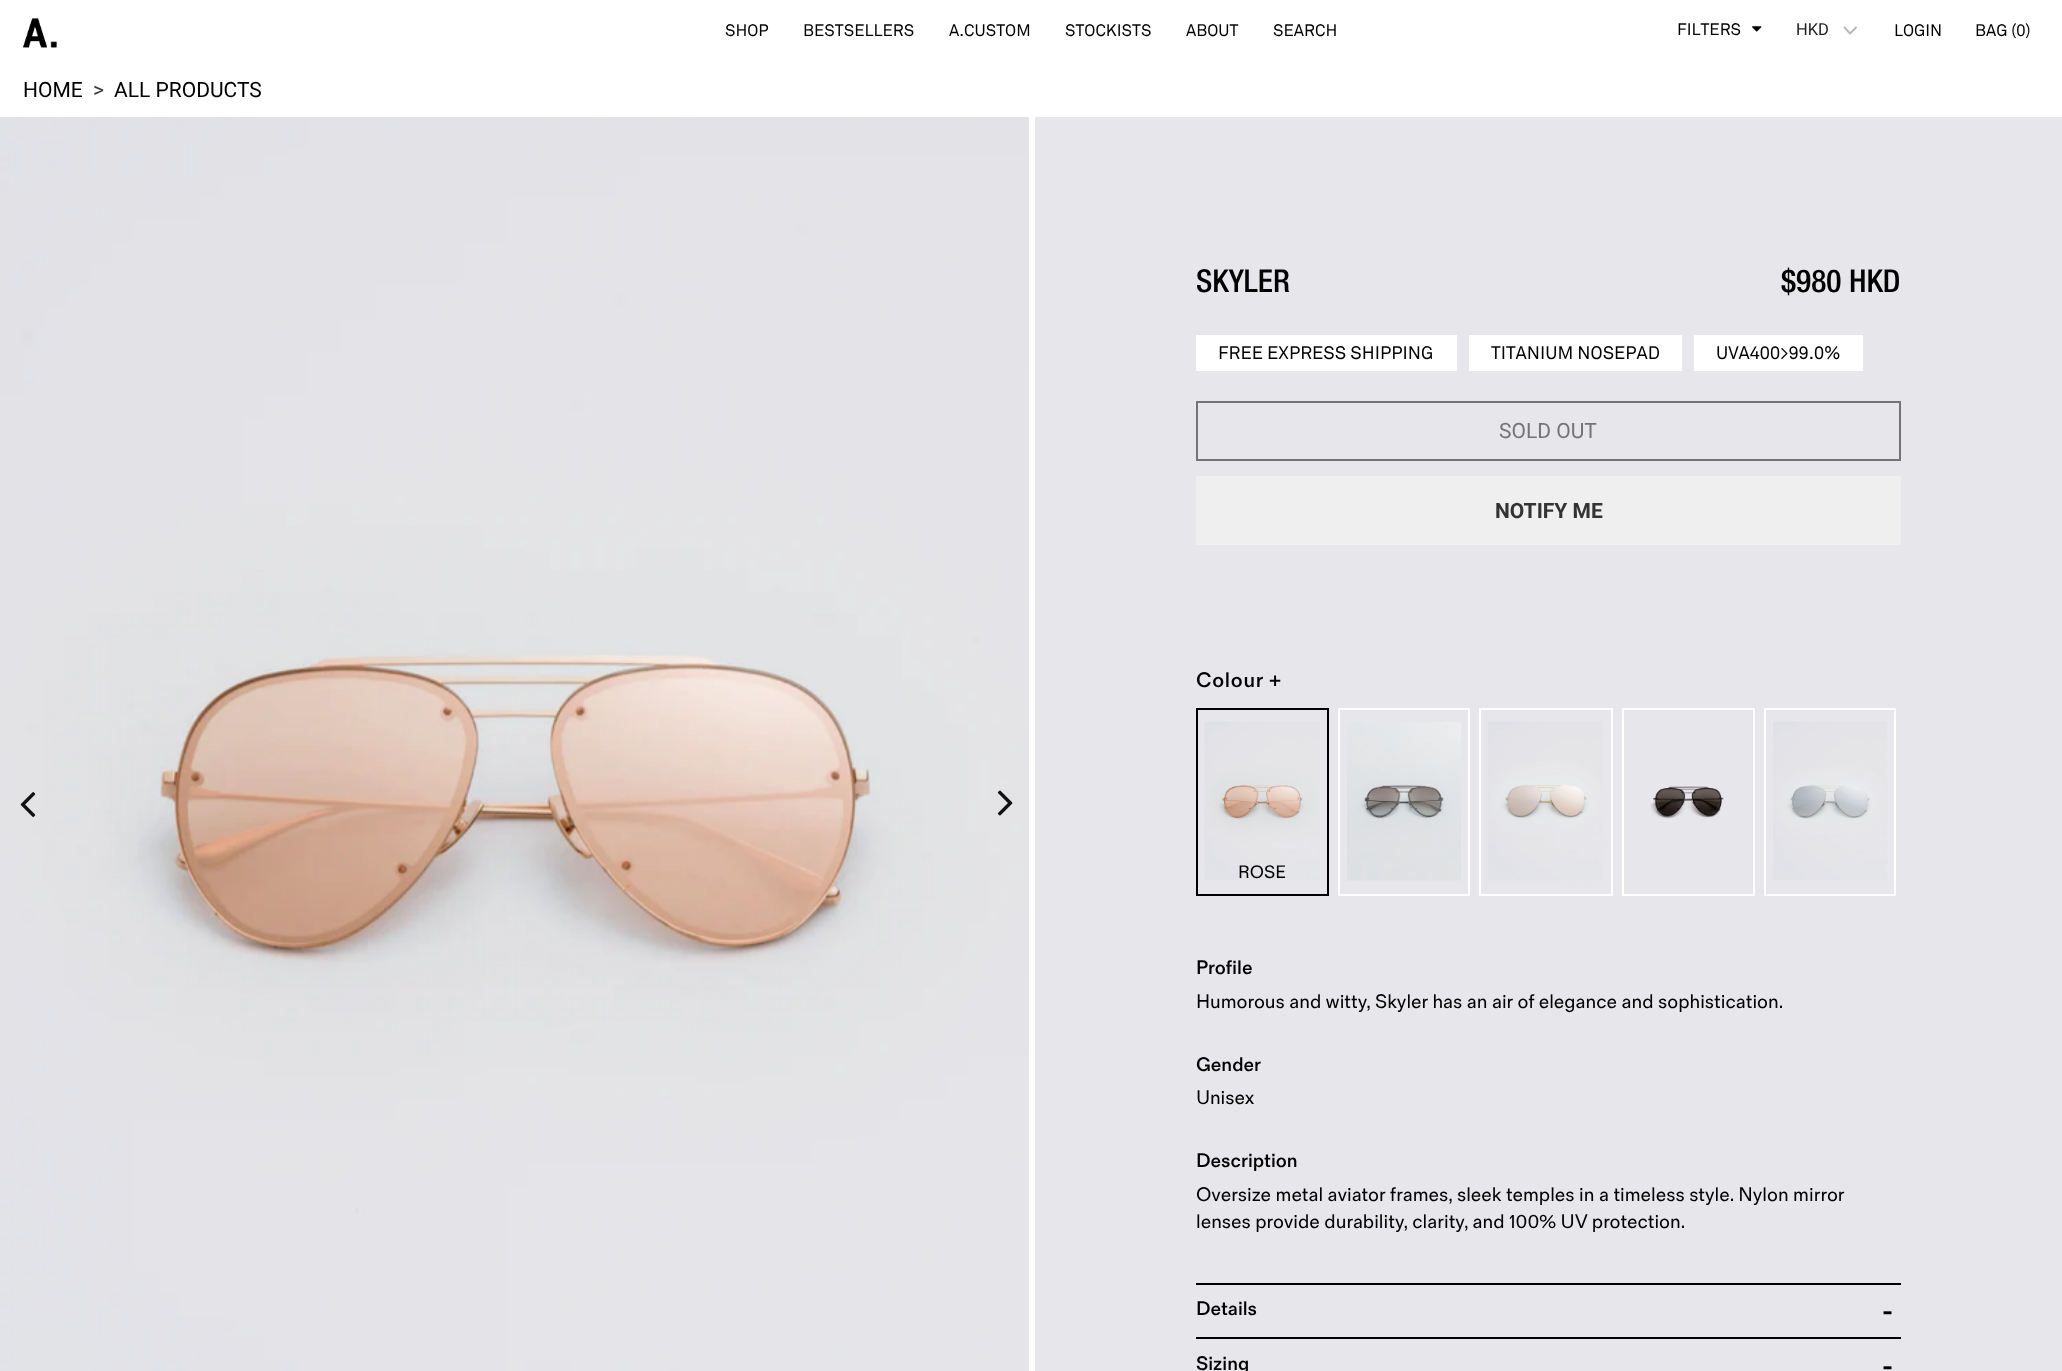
(async () => {
    const canvas = document.querySelector("canvas");
    canvas.width = 2062;
    canvas.height = 1371;
    const context = canvas.getContext("2d");
    context.miterLimit = 4;
    context.fontKerning = "normal";
    function write(s, x, y, font, color) {
        context.font = font;
        context.fillStyle = color;
        context.fillText(s, x, y);
    }
    function block(x, y, w, h, color) {
        context.fillStyle = color;
        context.fillRect(x, y, w, h);
    }
    async function photo(src, x, y, w, h) {
        const img = new Image();
        img.src = src;
        await img.decode();
        context.drawImage(img, x, y, w, h);
    }

    block(0, 0, 2062, 1371, "rgb(255, 255, 255)");
    await photo("media/1.png", 22, 18, 35, 30);
    write("SHOP", 725, 36, "16.5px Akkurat", "rgb(0, 0, 0)");
    write("BESTSELLERS", 803, 36, "16.5px Akkurat", "rgb(0, 0, 0)");
    write("A.CUSTOM", 949, 36, "16.5px Akkurat", "rgb(0, 0, 0)");
    write("STOCKISTS", 1065, 36, "16.5px Akkurat", "rgb(0, 0, 0)");
    write("ABOUT", 1186, 36, "16.5px Akkurat", "rgb(0, 0, 0)");
    write("SEARCH", 1273, 36, "16.5px Akkurat", "rgb(0, 0, 0)");
    write("FILTERS", 1677, 35, "16.5px Akkurat", "rgb(0, 0, 0)");
    await photo("media/2.png", 1752, 26, 10, 6);
    write("LOGIN", 1894, 36, "16.5px Akkurat", "rgb(0, 0, 0)");
    write("BAG (0)", 1975, 36, "16.5px Akkurat", "rgb(0, 0, 0)");
    write("HOME", 23, 97, "21px Roboto", "rgb(0, 0, 0)");
    write(">", 93, 97, "21px Roboto", "rgb(51, 51, 51)");
    write("ALL PRODUCTS", 114, 97, "21px Roboto", "rgb(0, 0, 0)");
    block(0, 117, 2062, 1254, "rgb(231, 230, 235)");
    block(1029, 117, 6, 1254, "rgb(255, 255, 255)");
    await photo("media/3.png", 0, 117, 1029, 1254);
    await photo("media/4.png", 20, 792, 16, 25);
    await photo("media/5.png", 997, 790, 16, 26);
    write("SKYLER", 1196, 292, "500 31.5px Helvetica Neue", "rgb(0, 0, 0)");
    write("$980 HKD", 1781, 292, "500 31.5px Helvetica Neue", "rgb(0, 0, 0)");
    block(1196, 335, 261, 36, "rgb(255, 255, 255)");
    write("FREE EXPRESS SHIPPING", 1218, 359, "18px Akkurat", "rgb(0, 0, 0)");
    block(1469, 335, 213, 36, "rgb(255, 255, 255)");
    write("TITANIUM NOSEPAD", 1491, 359, "18px Akkurat", "rgb(0, 0, 0)");
    block(1694, 335, 169, 36, "rgb(255, 255, 255)");
    write("UVA400>99.0%", 1716, 359, "18px Akkurat", "rgb(0, 0, 0)");
    context.strokeStyle = "rgb(116, 115, 118)";
    context.lineWidth = 2;
    context.strokeRect(1197, 402, 703, 58);
    write("SOLD OUT", 1499, 438, "21px Roboto", "rgb(116, 115, 118)");
    block(1196, 476, 705, 69, "rgb(239, 239, 239)");
    write("NOTIFY ME", 1495, 518, "bold 21px Roboto", "rgb(51, 51, 51)");
    context.letterSpacing = "0.75px";
    write("Colour +", 1196, 687, "500 21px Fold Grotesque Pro", "rgb(0, 0, 0)");
    context.strokeStyle = "rgb(0, 0, 0)";
    context.strokeRect(1197, 709, 131, 186);
    await photo("media/6.png", 1204, 721, 116, 159);
    context.letterSpacing = "0px";
    write("ROSE", 1238, 878, "18px Fold Grotesque Pro", "rgb(0, 0, 0)");
    context.strokeStyle = "rgb(255, 255, 255)";
    context.strokeRect(1339, 709, 130, 186);
    await photo("media/7.png", 1347, 722, 114, 159);
    context.strokeRect(1480, 709, 132, 186);
    await photo("media/8.png", 1488, 721, 115, 160);
    context.strokeRect(1623, 709, 131, 186);
    await photo("media/9.png", 1650, 786, 74, 33);
    context.strokeRect(1765, 709, 130, 186);
    await photo("media/10.png", 1773, 721, 114, 159);
    write("Profile", 1196, 974, "500 19.5px Fold Grotesque Pro", "rgb(0, 0, 0)");
    write("Humorous and witty, Skyler has an air of elegance and sophistication.", 1196, 1008, "19.5px Fold Grotesque Pro", "rgb(0, 0, 0)");
    write("Gender", 1196, 1071, "500 19.5px Fold Grotesque Pro", "rgb(0, 0, 0)");
    write("Unisex", 1196, 1104, "19.5px Fold Grotesque Pro", "rgb(0, 0, 0)");
    write("Description", 1196, 1167, "500 19.5px Fold Grotesque Pro", "rgb(0, 0, 0)");
    write("Oversize metal aviator frames, sleek temples in a timeless style. Nylon mirror", 1196, 1201, "19.5px Fold Grotesque Pro", "rgb(0, 0, 0)");
    write("lenses provide durability, clarity, and 100% UV protection.", 1196, 1228, "19.5px Fold Grotesque Pro", "rgb(0, 0, 0)");
    block(1196, 1283, 705, 2, "rgb(0, 0, 0)");
    write("Details", 1196, 1315, "500 19.5px Fold Grotesque Pro", "rgb(0, 0, 0)");
    write("-", 1882, 1321, "500 30px Fold Grotesque Pro", "rgb(0, 0, 0)");
    block(1196, 1337, 705, 2, "rgb(0, 0, 0)");
    write("Sizing", 1196, 1370, "500 19.5px Fold Grotesque Pro", "rgb(0, 0, 0)");
    write("-", 1882, 1376, "500 30px Fold Grotesque Pro", "rgb(0, 0, 0)");
    write("HKD", 1796, 35, "16.5px Roboto", "rgb(30, 30, 30)");
    context.beginPath();
    context.moveTo(1844.5, 27.5);
    context.lineTo(1850, 33.5);
    context.lineTo(1856, 27.5);
    context.strokeStyle = "rgb(183, 183, 183)";
    context.lineWidth = 1.9;
    context.lineCap = "round";
    context.lineJoin = "round";
    context.stroke();
})();
